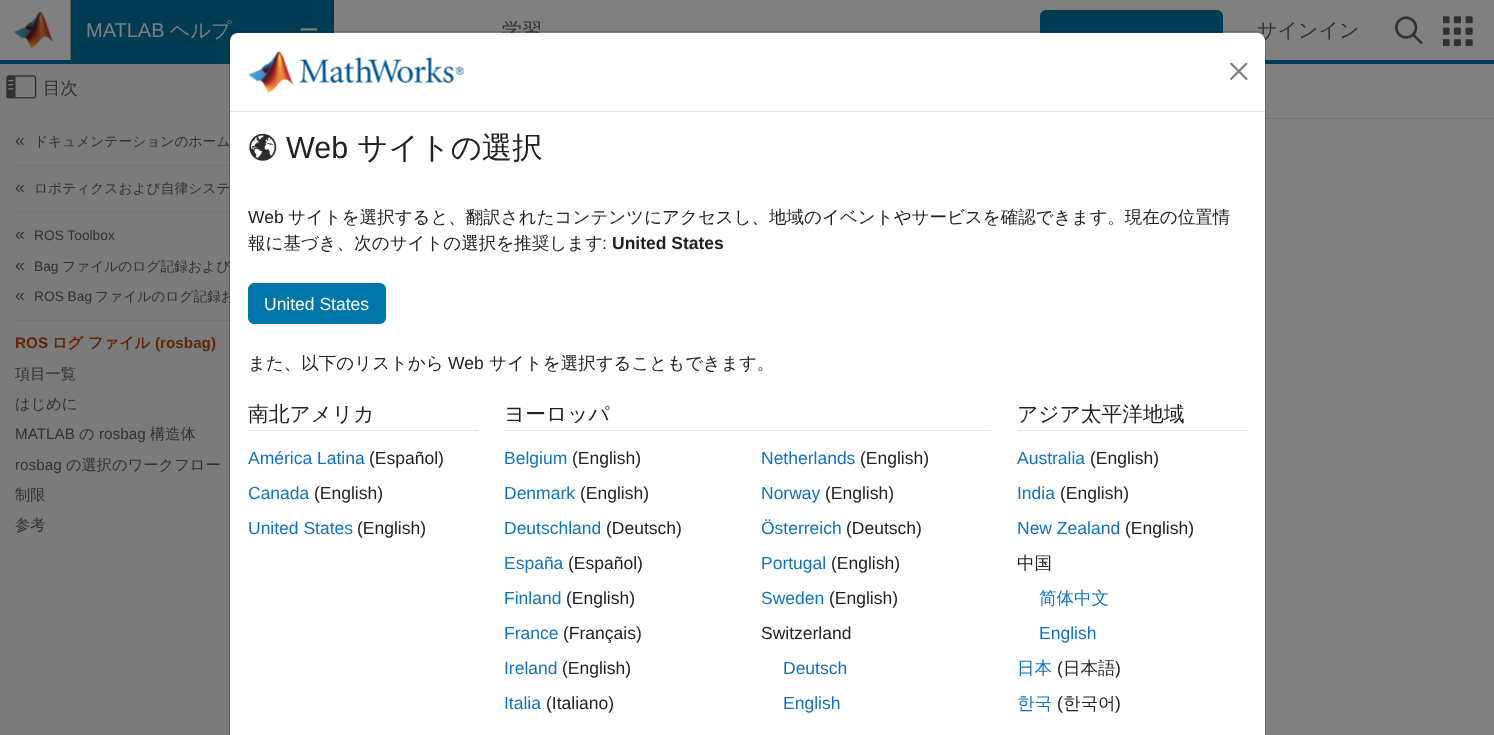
(async () => {
    const canvas = document.querySelector("canvas");
    canvas.width = 1494;
    canvas.height = 735;
    const context = canvas.getContext("2d");
    context.miterLimit = 4;
    context.fontKerning = "normal";
    function write(s, x, y, font, color) {
        context.font = font;
        context.fillStyle = color;
        context.fillText(s, x, y);
    }
    function block(x, y, w, h, color) {
        context.fillStyle = color;
        context.fillRect(x, y, w, h);
    }
    async function photo(src, x, y, w, h) {
        const img = new Image();
        img.src = src;
        await img.decode();
        context.drawImage(img, x, y, w, h);
    }

    block(0, 0, 1494, 735, "rgb(123, 123, 123)");
    block(0, 0, 1494, 60, "rgb(128, 128, 128)");
    block(0, 60, 1494, 4, "rgb(0, 59, 84)");
    block(70, 0, 1, 60, "rgb(96, 96, 96)");
    await photo("media/1.png", 13, 12, 41, 37);
    block(71, 0, 263, 60, "rgb(0, 59, 84)");
    write("MATLAB", 86, 37, "20px Liberation Sans", "rgb(128, 128, 128)");
    write("ヘルプ", 170, 37, "500 20px WenQuanYi Zen Hei", "rgb(128, 128, 128)");
    write("ー", 299, 37, "500 20px WenQuanYi Zen Hei", "rgb(128, 128, 128)");
    write("学習", 502, 37, "500 20px WenQuanYi Zen Hei", "rgb(49, 49, 49)");
    context.fillStyle = "rgb(0, 59, 84)";
    context.beginPath();
    context.roundRect(1040.5, 10.5, 182, 39, 5.5);
    context.fill();
    context.strokeStyle = "rgb(0, 59, 84)";
    context.stroke();
    write("サインイン", 1257, 37, "500 20px WenQuanYi Zen Hei", "rgb(49, 49, 49)");
    await photo("media/2.png", 1395, 16, 28, 28);
    await photo("media/3.png", 1443, 16, 30, 30);
    await photo("media/4.png", 6, 75, 31, 24);
    write("目次", 43, 94, "500 17.5px WenQuanYi Zen Hei", "rgb(49, 49, 49)");
    block(15, 165, 215, 1, "rgb(115, 115, 115)");
    write("«", 15, 146, "17.5px Liberation Sans", "rgb(49, 49, 49)");
    write("ドキュメンテーションのホーム", 34, 146, "500 13.75px WenQuanYi Zen Hei", "rgb(49, 49, 49)");
    block(15, 211, 215, 1, "rgb(115, 115, 115)");
    write("«", 15, 193, "17.5px Liberation Sans", "rgb(49, 49, 49)");
    write("ロボティクスおよび自律システ", 34, 193, "500 13.75px WenQuanYi Zen Hei", "rgb(49, 49, 49)");
    block(15, 320, 215, 1, "rgb(115, 115, 115)");
    write("«", 15, 240, "17.5px Liberation Sans", "rgb(49, 49, 49)");
    write("ROS Toolbox", 34, 240, "13.75px Liberation Sans", "rgb(49, 49, 49)");
    write("«", 15, 271, "17.5px Liberation Sans", "rgb(49, 49, 49)");
    write("Bag", 34, 271, "13.75px Liberation Sans", "rgb(49, 49, 49)");
    write("ファイルのログ記録および", 62, 271, "500 13.75px WenQuanYi Zen Hei", "rgb(49, 49, 49)");
    write("«", 15, 301, "17.5px Liberation Sans", "rgb(49, 49, 49)");
    write("ROS Bag", 34, 301, "13.75px Liberation Sans", "rgb(49, 49, 49)");
    write("ファイルのログ記録お", 95, 301, "500 13.75px WenQuanYi Zen Hei", "rgb(49, 49, 49)");
    write("ROS", 15, 348, "bold 15.25px Liberation Sans", "rgb(96, 38, 6)");
    write("ログ ファイル", 52, 348, "bold 15.25px WenQuanYi Zen Hei", "rgb(96, 38, 6)");
    write("(rosbag)", 155, 348, "bold 15.25px Liberation Sans", "rgb(96, 38, 6)");
    write("項目一覧", 15, 379, "500 15.25px WenQuanYi Zen Hei", "rgb(49, 49, 49)");
    write("はじめに", 15, 409, "500 15.25px WenQuanYi Zen Hei", "rgb(49, 49, 49)");
    write("MATLAB", 15, 439, "15.25px Liberation Sans", "rgb(49, 49, 49)");
    write("の", 79, 439, "500 15.25px WenQuanYi Zen Hei", "rgb(49, 49, 49)");
    write("rosbag", 99, 439, "15.25px Liberation Sans", "rgb(49, 49, 49)");
    write("構造体", 150, 439, "500 15.25px WenQuanYi Zen Hei", "rgb(49, 49, 49)");
    write("rosbag", 15, 470, "15.25px Liberation Sans", "rgb(49, 49, 49)");
    write("の選択のワークフロー", 66, 470, "500 15.25px WenQuanYi Zen Hei", "rgb(49, 49, 49)");
    write("制限", 15, 500, "500 15.25px WenQuanYi Zen Hei", "rgb(49, 49, 49)");
    write("参考", 15, 530, "500 15.25px WenQuanYi Zen Hei", "rgb(49, 49, 49)");
    block(1265, 64, 229, 54, "rgb(128, 128, 128)");
    block(1265, 118, 229, 1, "rgb(115, 115, 115)");
    block(1265, 119, 229, 616, "rgb(128, 128, 128)");
    context.fillStyle = "rgb(255, 255, 255)";
    context.beginPath();
    context.roundRect(230, 33, 1035, 702, [8, 8, 0, 0]);
    context.fill();
    context.beginPath();
    context.roundRect(229.5, 31.5, 1036, 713, 8.5);
    context.strokeStyle = "rgba(0, 0, 0, 0.18)";
    context.stroke();
    block(230, 111, 1035, 1, "rgb(222, 226, 230)");
    await photo("media/5.png", 248, 51, 216, 42);
    await photo("media/6.png", 1230, 63, 18, 17);
    await photo("media/7.png", 249, 133, 28, 28);
    write("Web", 286, 158, "30.5px Liberation Sans", "rgb(33, 33, 33)");
    write("サイトの選択", 357, 158, "500 30.5px WenQuanYi Zen Hei", "rgb(33, 33, 33)");
    write("Web", 248, 223, "17.5px Liberation Sans", "rgb(33, 33, 33)");
    write("サイトを選択すると、翻訳されたコンテンツにアクセスし、地域のイベントやサービスを確認できます。現在の位置情", 288, 223, "500 17.5px WenQuanYi Zen Hei", "rgb(33, 33, 33)");
    write("報に基づき、次のサイトの選択を推奨します", 248, 249, "500 17.5px WenQuanYi Zen Hei", "rgb(33, 33, 33)");
    write(":", 602, 249, "17.5px Liberation Sans", "rgb(33, 33, 33)");
    write("United States", 612, 249, "bold 17.5px Liberation Sans", "rgb(33, 33, 33)");
    context.fillStyle = "rgb(0, 118, 168)";
    context.beginPath();
    context.roundRect(248.5, 283.5, 137, 40, 5.5);
    context.fill();
    context.strokeStyle = "rgb(0, 118, 168)";
    context.stroke();
    write("United States", 264, 310, "17.5px Liberation Sans", "rgb(255, 255, 255)");
    write("また、以下のリストから", 248, 369, "500 17.5px WenQuanYi Zen Hei", "rgb(33, 33, 33)");
    write("Web", 448, 369, "17.5px Liberation Sans", "rgb(33, 33, 33)");
    write("サイトを選択することもできます。", 489, 369, "500 17.5px WenQuanYi Zen Hei", "rgb(33, 33, 33)");
    block(248, 430, 230, 1, "rgb(230, 230, 230)");
    write("南北アメリカ", 248, 421, "500 20.75px WenQuanYi Zen Hei", "rgb(33, 33, 33)");
    write("América Latina", 248, 464, "17.5px Liberation Sans", "rgb(17, 113, 190)");
    write("(Español)", 369, 464, "17.5px Liberation Sans", "rgb(33, 33, 33)");
    write("Canada", 248, 499, "17.5px Liberation Sans", "rgb(17, 113, 190)");
    write("(English)", 314, 499, "17.5px Liberation Sans", "rgb(33, 33, 33)");
    write("United States", 248, 534, "17.5px Liberation Sans", "rgb(17, 113, 190)");
    write("(English)", 357, 534, "17.5px Liberation Sans", "rgb(33, 33, 33)");
    block(504, 430, 487, 1, "rgb(230, 230, 230)");
    write("ヨーロッパ", 504, 421, "500 20.75px WenQuanYi Zen Hei", "rgb(33, 33, 33)");
    write("Belgium", 504, 464, "17.5px Liberation Sans", "rgb(17, 113, 190)");
    write("(English)", 572, 464, "17.5px Liberation Sans", "rgb(33, 33, 33)");
    write("Denmark", 504, 499, "17.5px Liberation Sans", "rgb(17, 113, 190)");
    write("(English)", 580, 499, "17.5px Liberation Sans", "rgb(33, 33, 33)");
    write("Deutschland", 504, 534, "17.5px Liberation Sans", "rgb(17, 113, 190)");
    write("(Deutsch)", 606, 534, "17.5px Liberation Sans", "rgb(33, 33, 33)");
    write("España", 504, 569, "17.5px Liberation Sans", "rgb(17, 113, 190)");
    write("(Español)", 568, 569, "17.5px Liberation Sans", "rgb(33, 33, 33)");
    write("Finland", 504, 604, "17.5px Liberation Sans", "rgb(17, 113, 190)");
    write("(English)", 566, 604, "17.5px Liberation Sans", "rgb(33, 33, 33)");
    write("France", 504, 639, "17.5px Liberation Sans", "rgb(17, 113, 190)");
    write("(Français)", 563, 639, "17.5px Liberation Sans", "rgb(33, 33, 33)");
    write("Ireland", 504, 674, "17.5px Liberation Sans", "rgb(17, 113, 190)");
    write("(English)", 562, 674, "17.5px Liberation Sans", "rgb(33, 33, 33)");
    write("Italia", 504, 709, "17.5px Liberation Sans", "rgb(17, 113, 190)");
    write("(Italiano)", 546, 709, "17.5px Liberation Sans", "rgb(33, 33, 33)");
    write("Netherlands", 761, 464, "17.5px Liberation Sans", "rgb(17, 113, 190)");
    write("(English)", 860, 464, "17.5px Liberation Sans", "rgb(33, 33, 33)");
    write("Norway", 761, 499, "17.5px Liberation Sans", "rgb(17, 113, 190)");
    write("(English)", 825, 499, "17.5px Liberation Sans", "rgb(33, 33, 33)");
    write("Österreich", 761, 534, "17.5px Liberation Sans", "rgb(17, 113, 190)");
    write("(Deutsch)", 846, 534, "17.5px Liberation Sans", "rgb(33, 33, 33)");
    write("Portugal", 761, 569, "17.5px Liberation Sans", "rgb(17, 113, 190)");
    write("(English)", 831, 569, "17.5px Liberation Sans", "rgb(33, 33, 33)");
    write("Sweden", 761, 604, "17.5px Liberation Sans", "rgb(17, 113, 190)");
    write("(English)", 829, 604, "17.5px Liberation Sans", "rgb(33, 33, 33)");
    write("Switzerland", 761, 639, "17.5px Liberation Sans", "rgb(33, 33, 33)");
    write("Deutsch", 783, 674, "17.5px Liberation Sans", "rgb(17, 113, 190)");
    write("English", 783, 709, "17.5px Liberation Sans", "rgb(17, 113, 190)");
    block(1018, 430, 230, 1, "rgb(230, 230, 230)");
    write("アジア太平洋地域", 1017, 421, "500 20.75px WenQuanYi Zen Hei", "rgb(33, 33, 33)");
    write("Australia", 1017, 464, "17.5px Liberation Sans", "rgb(17, 113, 190)");
    write("(English)", 1090, 464, "17.5px Liberation Sans", "rgb(33, 33, 33)");
    write("India", 1017, 499, "17.5px Liberation Sans", "rgb(17, 113, 190)");
    write("(English)", 1060, 499, "17.5px Liberation Sans", "rgb(33, 33, 33)");
    write("New Zealand", 1017, 534, "17.5px Liberation Sans", "rgb(17, 113, 190)");
    write("(English)", 1125, 534, "17.5px Liberation Sans", "rgb(33, 33, 33)");
    write("中国", 1017, 569, "500 17.5px WenQuanYi Zen Hei", "rgb(33, 33, 33)");
    write("简体中文", 1039, 604, "500 17.5px WenQuanYi Zen Hei", "rgb(17, 113, 190)");
    write("English", 1039, 639, "17.5px Liberation Sans", "rgb(17, 113, 190)");
    write("日本", 1017, 674, "500 17.5px WenQuanYi Zen Hei", "rgb(17, 113, 190)");
    write("(", 1057, 674, "17.5px Liberation Sans", "rgb(33, 33, 33)");
    write("日本語", 1063, 674, "500 17.5px WenQuanYi Zen Hei", "rgb(33, 33, 33)");
    write(")", 1115, 674, "17.5px Liberation Sans", "rgb(33, 33, 33)");
    write("한국", 1017, 709, "500 17.5px WenQuanYi Zen Hei", "rgb(17, 113, 190)");
    write("(", 1057, 709, "17.5px Liberation Sans", "rgb(33, 33, 33)");
    write("한국어", 1063, 709, "500 17.5px WenQuanYi Zen Hei", "rgb(33, 33, 33)");
    write(")", 1115, 709, "17.5px Liberation Sans", "rgb(33, 33, 33)");
})();
